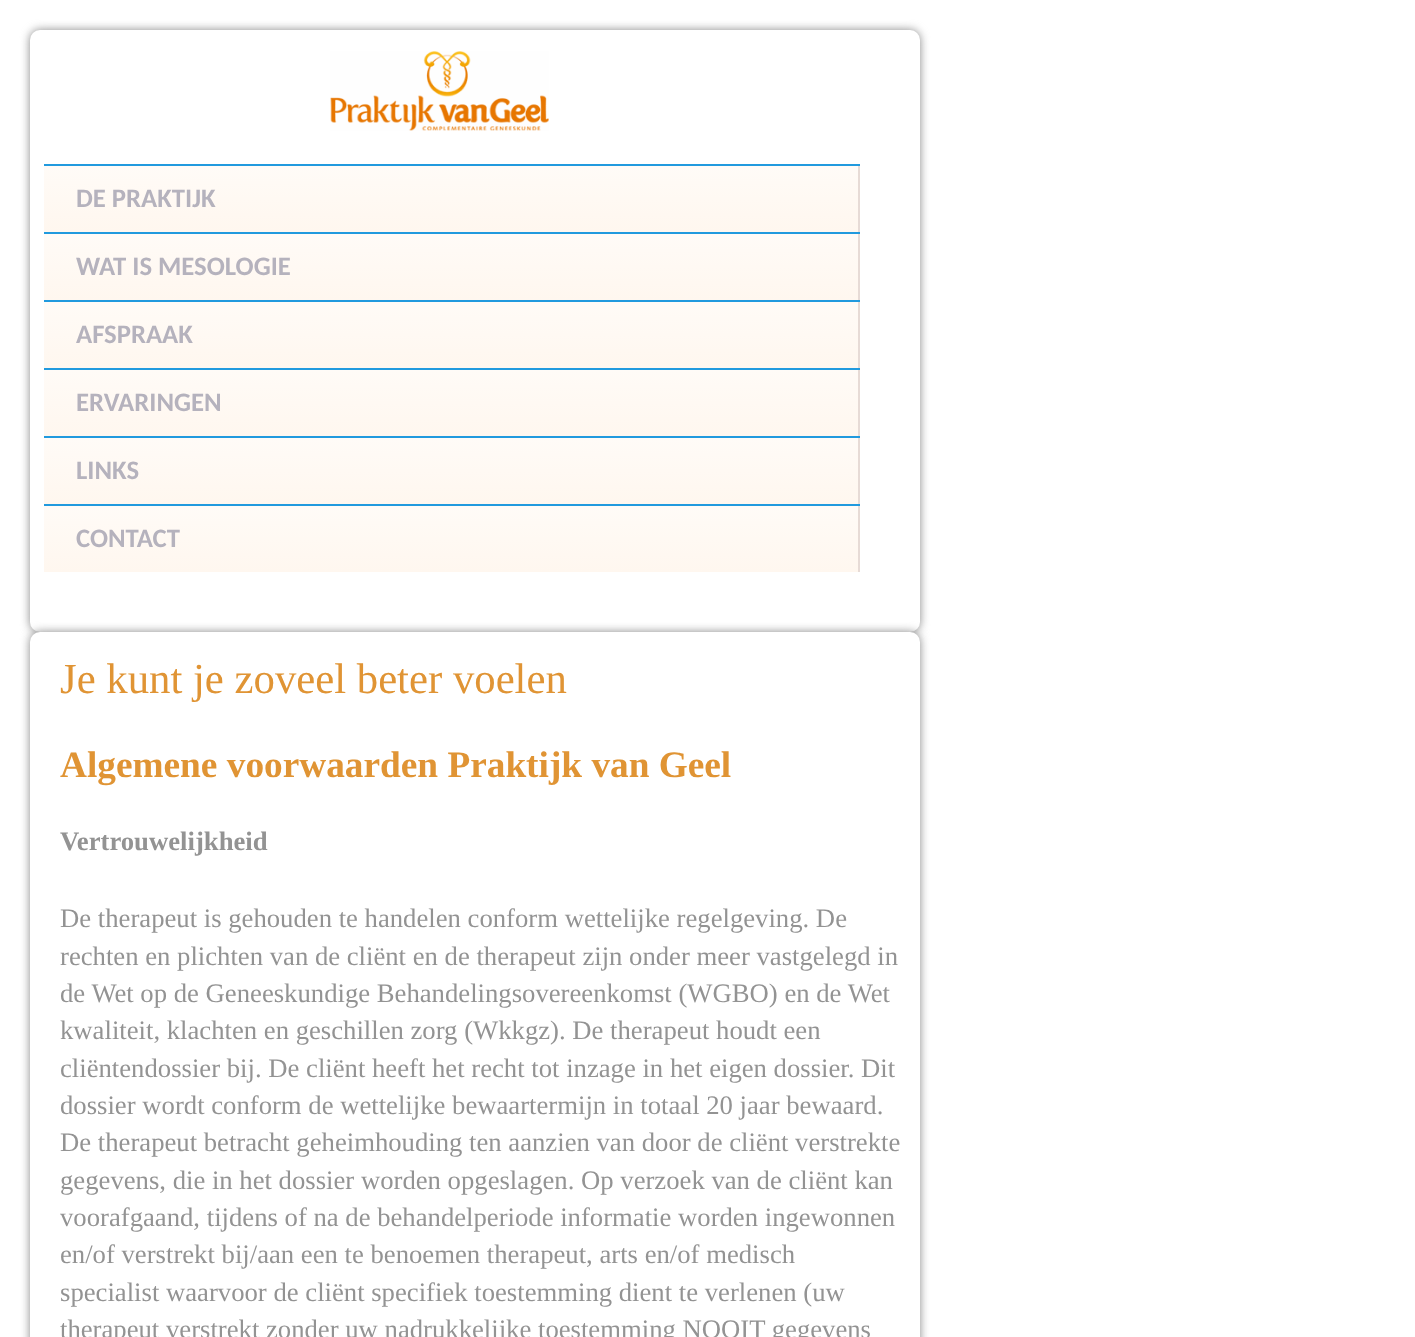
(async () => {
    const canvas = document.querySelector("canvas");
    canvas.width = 1415;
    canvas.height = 1337;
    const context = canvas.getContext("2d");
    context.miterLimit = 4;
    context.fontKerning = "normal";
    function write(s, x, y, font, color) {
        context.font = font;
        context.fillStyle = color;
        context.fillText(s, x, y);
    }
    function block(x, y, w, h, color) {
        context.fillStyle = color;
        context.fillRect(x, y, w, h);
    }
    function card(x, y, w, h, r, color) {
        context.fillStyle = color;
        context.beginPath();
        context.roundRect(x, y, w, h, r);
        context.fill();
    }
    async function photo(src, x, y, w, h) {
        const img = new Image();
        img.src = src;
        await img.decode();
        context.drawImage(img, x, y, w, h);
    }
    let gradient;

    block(0, 0, 1415, 1337, "rgb(255, 255, 255)");
    context.fillStyle = "rgb(136, 136, 136)";
    context.filter = "blur(5px)";
    context.beginPath();
    context.roundRect(30, 30, 890, 602, 10);
    context.fill();
    context.filter = "none";
    card(30, 30, 890, 602, 10, "rgb(255, 255, 255)");
    await photo("media/1.png", 330, 51, 219, 80);
    block(44, 164, 816, 2, "rgb(33, 154, 222)");
    gradient = context.createLinearGradient(44, 166, 44, 232);
    gradient.addColorStop(0, "rgb(255, 251, 247)");
    gradient.addColorStop(1, "rgb(255, 247, 239)");
    context.fillStyle = gradient;
    context.fillRect(44, 166, 814, 66);
    block(858, 166, 2, 66, "rgb(231, 219, 214)");
    write("DE PRAKTIJK", 76, 207, "bold 26.7px Carlito", "rgb(181, 178, 189)");
    block(44, 232, 816, 2, "rgb(33, 154, 222)");
    gradient = context.createLinearGradient(44, 234, 44, 300);
    gradient.addColorStop(0, "rgb(255, 251, 247)");
    gradient.addColorStop(1, "rgb(255, 247, 239)");
    context.fillStyle = gradient;
    context.fillRect(44, 234, 814, 66);
    block(858, 234, 2, 66, "rgb(231, 219, 214)");
    write("WAT IS MESOLOGIE", 76, 275, "bold 26.7px Carlito", "rgb(181, 178, 189)");
    block(44, 300, 816, 2, "rgb(33, 154, 222)");
    gradient = context.createLinearGradient(44, 302, 44, 368);
    gradient.addColorStop(0, "rgb(255, 251, 247)");
    gradient.addColorStop(1, "rgb(255, 247, 239)");
    context.fillStyle = gradient;
    context.fillRect(44, 302, 814, 66);
    block(858, 302, 2, 66, "rgb(231, 219, 214)");
    write("AFSPRAAK", 76, 343, "bold 26.7px Carlito", "rgb(181, 178, 189)");
    block(44, 368, 816, 2, "rgb(33, 154, 222)");
    gradient = context.createLinearGradient(44, 370, 44, 436);
    gradient.addColorStop(0, "rgb(255, 251, 247)");
    gradient.addColorStop(1, "rgb(255, 247, 239)");
    context.fillStyle = gradient;
    context.fillRect(44, 370, 814, 66);
    block(858, 370, 2, 66, "rgb(231, 219, 214)");
    write("ERVARINGEN", 76, 411, "bold 26.7px Carlito", "rgb(181, 178, 189)");
    block(44, 436, 816, 2, "rgb(33, 154, 222)");
    gradient = context.createLinearGradient(44, 438, 44, 504);
    gradient.addColorStop(0, "rgb(255, 251, 247)");
    gradient.addColorStop(1, "rgb(255, 247, 239)");
    context.fillStyle = gradient;
    context.fillRect(44, 438, 814, 66);
    block(858, 438, 2, 66, "rgb(231, 219, 214)");
    write("LINKS", 76, 479, "bold 26.7px Carlito", "rgb(181, 178, 189)");
    block(44, 504, 816, 2, "rgb(33, 154, 222)");
    gradient = context.createLinearGradient(44, 506, 44, 572);
    gradient.addColorStop(0, "rgb(255, 251, 247)");
    gradient.addColorStop(1, "rgb(255, 247, 239)");
    context.fillStyle = gradient;
    context.fillRect(44, 506, 814, 66);
    block(858, 506, 2, 66, "rgb(231, 219, 214)");
    write("CONTACT", 76, 547, "bold 26.7px Carlito", "rgb(181, 178, 189)");
    context.fillStyle = "rgb(136, 136, 136)";
    context.filter = "blur(5px)";
    context.beginPath();
    context.roundRect(30, 632, 890, 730, 10);
    context.fill();
    context.filter = "none";
    card(30, 632, 890, 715, 10, "rgb(255, 255, 255)");
    write("Je kunt je zoveel beter voelen", 60, 693, "42.75px Liberation Serif", "rgb(224, 148, 52)");
    write("Algemene voorwaarden Praktijk van Geel", 60, 777, "bold 37.3px Liberation Serif", "rgb(224, 148, 52)");
    write("Vertrouwelijkheid", 60, 850, "bold 26.7px Liberation Serif", "rgb(147, 147, 147)");
    write("De therapeut is gehouden te handelen conform wettelijke regelgeving. De", 60, 927, "26.7px Liberation Serif", "rgb(147, 147, 147)");
    write("rechten en plichten van de cliënt en de therapeut zijn onder meer vastgelegd in", 60, 965, "26.7px Liberation Serif", "rgb(147, 147, 147)");
    write("de Wet op de Geneeskundige Behandelingsovereenkomst (WGBO) en de Wet", 60, 1002, "26.7px Liberation Serif", "rgb(147, 147, 147)");
    write("kwaliteit, klachten en geschillen zorg (Wkkgz). De therapeut houdt een", 60, 1039, "26.7px Liberation Serif", "rgb(147, 147, 147)");
    write("cliëntendossier bij. De cliënt heeft het recht tot inzage in het eigen dossier. Dit", 60, 1077, "26.7px Liberation Serif", "rgb(147, 147, 147)");
    write("dossier wordt conform de wettelijke bewaartermijn in totaal 20 jaar bewaard.", 60, 1114, "26.7px Liberation Serif", "rgb(147, 147, 147)");
    write("De therapeut betracht geheimhouding ten aanzien van door de cliënt verstrekte", 60, 1151, "26.7px Liberation Serif", "rgb(147, 147, 147)");
    write("gegevens, die in het dossier worden opgeslagen. Op verzoek van de cliënt kan", 60, 1189, "26.7px Liberation Serif", "rgb(147, 147, 147)");
    write("voorafgaand, tijdens of na de behandelperiode informatie worden ingewonnen", 60, 1226, "26.7px Liberation Serif", "rgb(147, 147, 147)");
    write("en/of verstrekt bij/aan een te benoemen therapeut, arts en/of medisch", 60, 1263, "26.7px Liberation Serif", "rgb(147, 147, 147)");
    write("specialist waarvoor de cliënt specifiek toestemming dient te verlenen (uw", 60, 1301, "26.7px Liberation Serif", "rgb(147, 147, 147)");
    write("therapeut verstrekt zonder uw nadrukkelijke toestemming NOOIT gegevens", 60, 1338, "26.7px Liberation Serif", "rgb(147, 147, 147)");
})();
